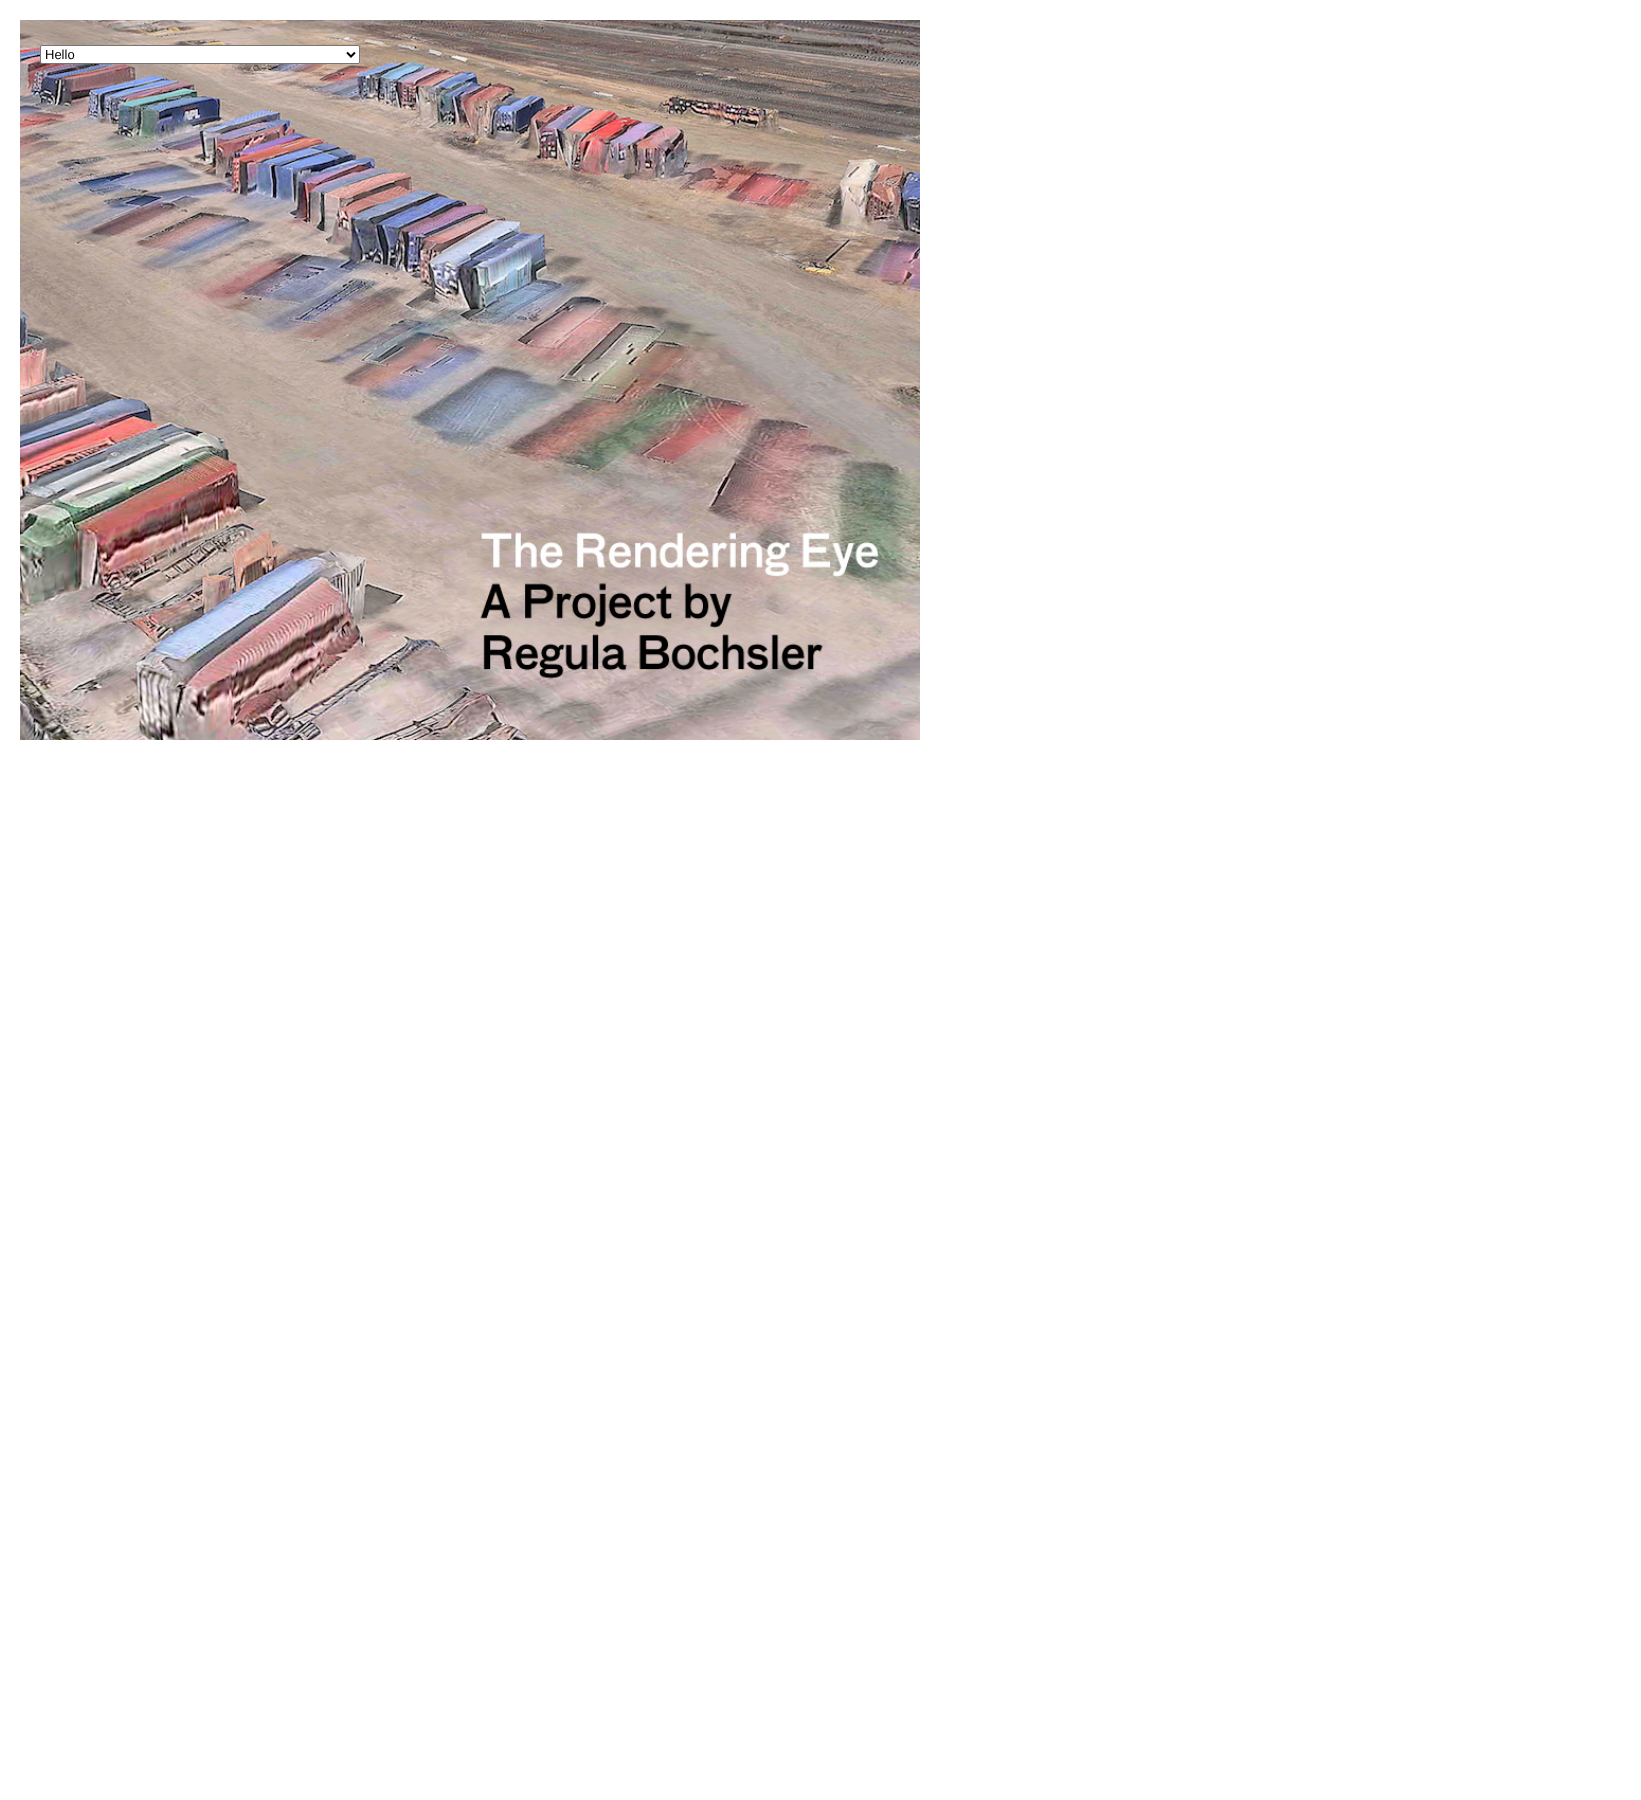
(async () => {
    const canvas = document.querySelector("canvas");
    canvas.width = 1641;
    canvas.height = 1800;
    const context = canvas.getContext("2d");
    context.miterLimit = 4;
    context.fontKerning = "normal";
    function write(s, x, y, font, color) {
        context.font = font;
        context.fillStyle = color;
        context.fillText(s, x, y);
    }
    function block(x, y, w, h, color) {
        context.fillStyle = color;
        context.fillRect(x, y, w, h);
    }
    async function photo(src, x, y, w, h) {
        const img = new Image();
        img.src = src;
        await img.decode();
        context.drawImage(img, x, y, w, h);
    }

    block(0, 0, 1641, 1800, "rgb(255, 255, 255)");
    await photo("media/1.png", 20, 20, 900, 720);
    context.beginPath();
    context.roundRect(40.5, 45.5, 319, 18, 1.5);
    context.fill();
    context.strokeStyle = "rgb(118, 118, 118)";
    context.stroke();
    context.beginPath();
    context.moveTo(347, 52.5);
    context.lineTo(351, 56.5);
    context.lineTo(355, 52.5);
    context.strokeStyle = "rgb(0, 0, 0)";
    context.lineWidth = 2;
    context.stroke();
    write("Hello", 45, 59, "13px Liberation Sans", "rgb(0, 0, 0)");
})();
